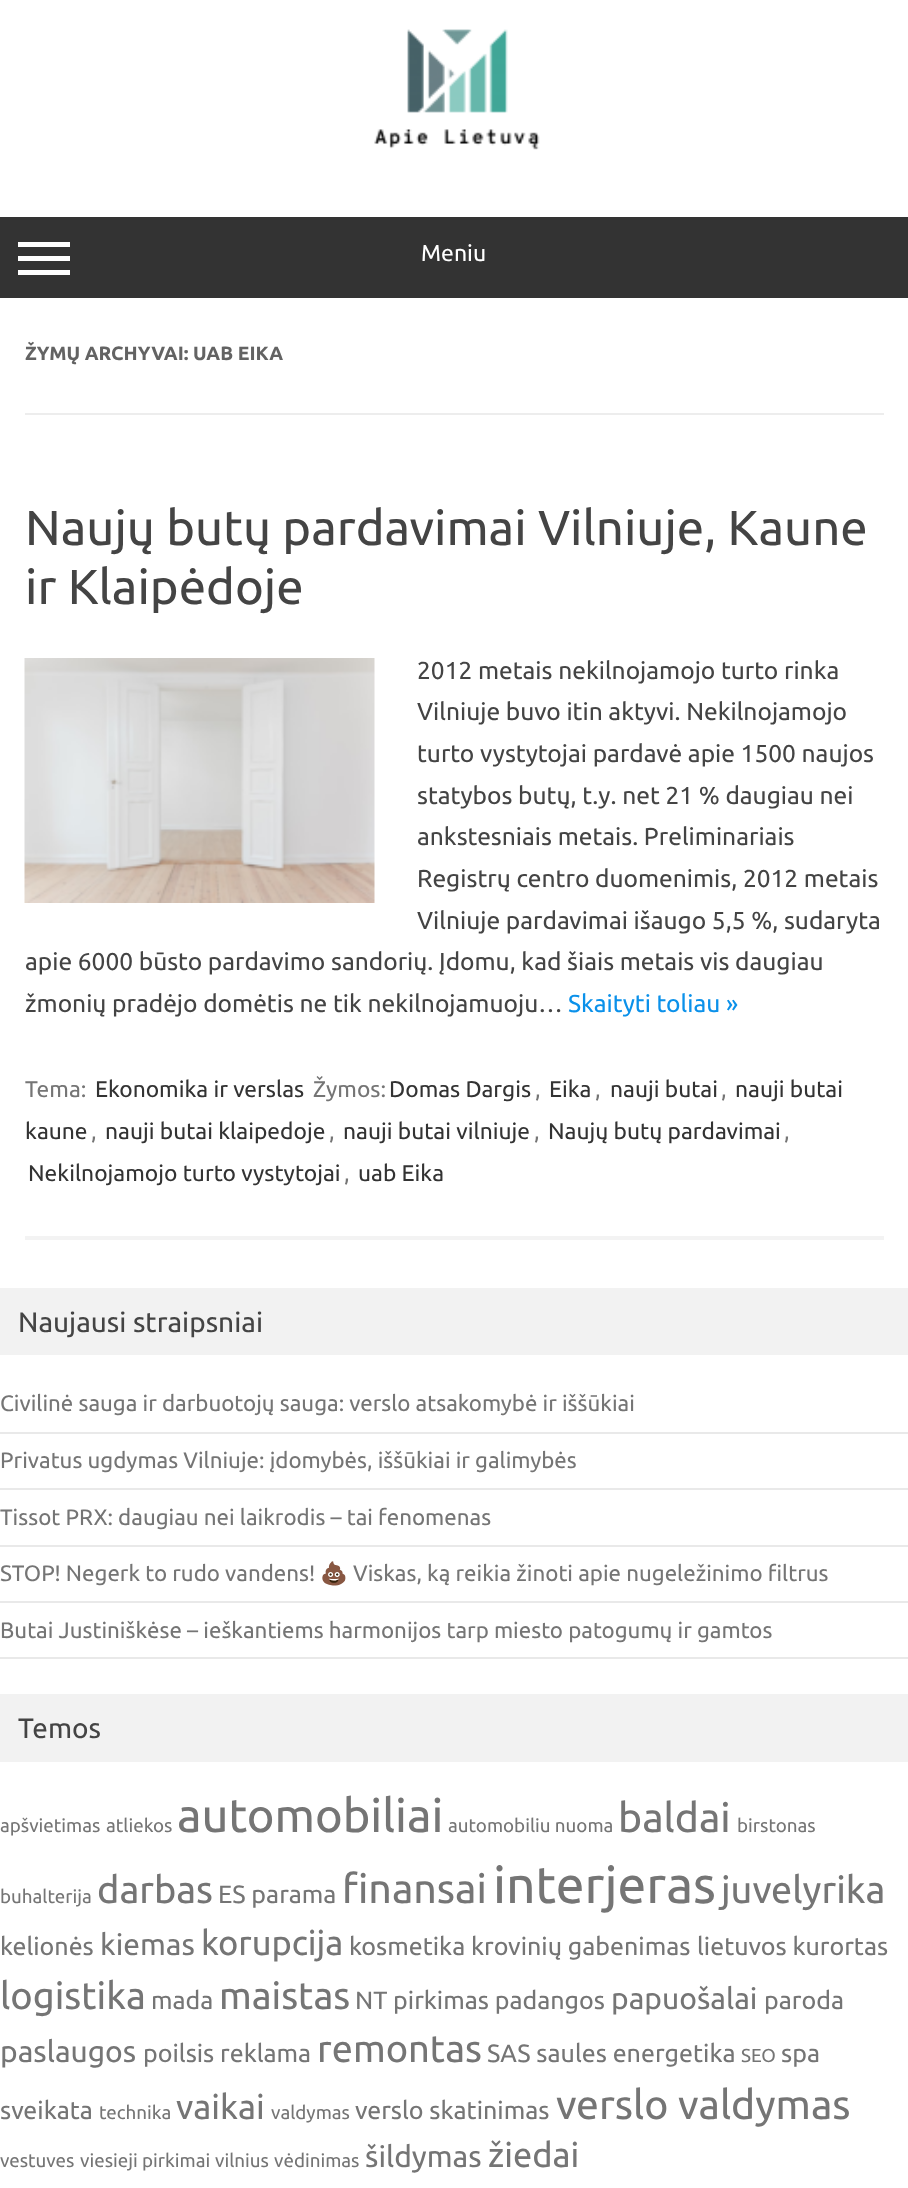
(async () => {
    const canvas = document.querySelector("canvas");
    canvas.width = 908;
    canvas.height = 2188;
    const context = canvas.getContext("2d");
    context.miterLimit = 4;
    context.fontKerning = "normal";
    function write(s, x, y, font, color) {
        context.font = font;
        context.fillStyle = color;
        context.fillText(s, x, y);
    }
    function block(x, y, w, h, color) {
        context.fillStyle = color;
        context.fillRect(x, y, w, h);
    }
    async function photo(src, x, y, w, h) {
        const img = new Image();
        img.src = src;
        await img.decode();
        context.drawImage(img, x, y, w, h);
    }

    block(0, 0, 908, 2188, "rgb(255, 255, 255)");
    await photo("media/1.png", 374, 29, 166, 121);
    block(0, 217, 908, 81, "rgb(51, 51, 51)");
    block(18, 242, 52, 5, "rgb(255, 255, 255)");
    block(18, 256, 52, 5, "rgb(255, 255, 255)");
    block(18, 270, 52, 5, "rgb(255, 255, 255)");
    write("Meniu", 421, 261, "23px Ubuntu", "rgb(255, 255, 255)");
    block(25, 413, 859, 2, "rgb(237, 237, 237)");
    write("ŽYMŲ ARCHYVAI: UAB EIKA", 25, 360, "bold 19.25px Ubuntu", "rgb(99, 99, 99)");
    block(25, 1236, 859, 4, "rgb(243, 243, 243)");
    write("Naujų butų pardavimai Vilniuje, Kaune", 25, 545, "49px Ubuntu", "rgb(68, 68, 68)");
    write("ir Klaipėdoje", 25, 604, "49px Ubuntu", "rgb(68, 68, 68)");
    await photo("media/2.png", 24, 658, 351, 245);
    write("2012 metais nekilnojamojo turto rinka", 417, 679, "24.5px Ubuntu", "rgb(68, 68, 68)");
    write("Vilniuje buvo itin aktyvi. Nekilnojamojo", 417, 720, "24.5px Ubuntu", "rgb(68, 68, 68)");
    write("turto vystytojai pardavė apie 1500 naujos", 417, 762, "24.5px Ubuntu", "rgb(68, 68, 68)");
    write("statybos butų, t.y. net 21 % daugiau nei", 417, 804, "24.5px Ubuntu", "rgb(68, 68, 68)");
    write("ankstesniais metais. Preliminariais", 417, 845, "24.5px Ubuntu", "rgb(68, 68, 68)");
    write("Registrų centro duomenimis, 2012 metais", 417, 887, "24.5px Ubuntu", "rgb(68, 68, 68)");
    write("Vilniuje pardavimai išaugo 5,5 %, sudaryta", 417, 929, "24.5px Ubuntu", "rgb(68, 68, 68)");
    write("apie 6000 būsto pardavimo sandorių. Įdomu, kad šiais metais vis daugiau", 25, 970, "24.5px Ubuntu", "rgb(68, 68, 68)");
    write("žmonių pradėjo domėtis ne tik nekilnojamuoju…", 25, 1012, "24.5px Ubuntu", "rgb(68, 68, 68)");
    write("Skaityti toliau »", 568, 1012, "24.5px Ubuntu", "rgb(11, 145, 234)");
    write("Tema:", 25, 1097, "22.75px Ubuntu", "rgb(117, 117, 117)");
    write("Ekonomika ir verslas", 95, 1097, "22.75px Ubuntu", "rgb(51, 51, 51)");
    write("Žymos:", 313, 1097, "22.75px Ubuntu", "rgb(117, 117, 117)");
    write("Domas Dargis", 389, 1097, "22.75px Ubuntu", "rgb(51, 51, 51)");
    write(",", 535, 1097, "22.75px Ubuntu", "rgb(117, 117, 117)");
    write("Eika", 549, 1097, "22.75px Ubuntu", "rgb(51, 51, 51)");
    write(",", 595, 1097, "22.75px Ubuntu", "rgb(117, 117, 117)");
    write("nauji butai", 610, 1097, "22.75px Ubuntu", "rgb(51, 51, 51)");
    write(",", 721, 1097, "22.75px Ubuntu", "rgb(117, 117, 117)");
    write("nauji butai", 735, 1097, "22.75px Ubuntu", "rgb(51, 51, 51)");
    write("kaune", 25, 1139, "22.75px Ubuntu", "rgb(51, 51, 51)");
    write(",", 91, 1139, "22.75px Ubuntu", "rgb(117, 117, 117)");
    write("nauji butai klaipedoje", 105, 1139, "22.75px Ubuntu", "rgb(51, 51, 51)");
    write(",", 329, 1139, "22.75px Ubuntu", "rgb(117, 117, 117)");
    write("nauji butai vilniuje", 343, 1139, "22.75px Ubuntu", "rgb(51, 51, 51)");
    write(",", 534, 1139, "22.75px Ubuntu", "rgb(117, 117, 117)");
    write("Naujų butų pardavimai", 548, 1139, "22.75px Ubuntu", "rgb(51, 51, 51)");
    write(",", 784, 1139, "22.75px Ubuntu", "rgb(117, 117, 117)");
    write("Nekilnojamojo turto vystytojai", 28, 1181, "22.75px Ubuntu", "rgb(51, 51, 51)");
    write(",", 344, 1181, "22.75px Ubuntu", "rgb(117, 117, 117)");
    write("uab Eika", 358, 1181, "22.75px Ubuntu", "rgb(51, 51, 51)");
    block(0, 1288, 908, 67, "rgb(242, 242, 242)");
    write("Naujausi straipsniai", 18, 1332, "28px Ubuntu", "rgb(68, 68, 68)");
    block(0, 1432, 908, 2, "rgb(233, 233, 233)");
    write("Civilinė sauga ir darbuotojų sauga: verslo atsakomybė ir iššūkiai", 0, 1411, "22.3px Ubuntu", "rgb(117, 117, 117)");
    block(0, 1488, 908, 2, "rgb(233, 233, 233)");
    write("Privatus ugdymas Vilniuje: įdomybės, iššūkiai ir galimybės", 0, 1468, "22.3px Ubuntu", "rgb(117, 117, 117)");
    block(0, 1545, 908, 2, "rgb(233, 233, 233)");
    write("Tissot PRX: daugiau nei laikrodis – tai fenomenas", 0, 1525, "22.3px Ubuntu", "rgb(117, 117, 117)");
    block(0, 1601, 908, 2, "rgb(233, 233, 233)");
    write("STOP! Negerk to rudo vandens!", 0, 1581, "22.3px Ubuntu", "rgb(117, 117, 117)");
    write("💩", 320, 1581, "22.3px Noto Color Emoji", "rgb(117, 117, 117)");
    write("Viskas, ką reikia žinoti apie nugeležinimo filtrus", 353, 1581, "22.3px Ubuntu", "rgb(117, 117, 117)");
    block(0, 1657, 908, 2, "rgb(233, 233, 233)");
    write("Butai Justiniškėse – ieškantiems harmonijos tarp miesto patogumų ir gamtos", 0, 1638, "22.3px Ubuntu", "rgb(117, 117, 117)");
    block(0, 1694, 908, 68, "rgb(242, 242, 242)");
    write("Temos", 18, 1738, "28px Ubuntu", "rgb(68, 68, 68)");
    write("apšvietimas", 0, 1832, "18.75px Ubuntu", "rgb(117, 117, 117)");
    write("atliekos", 106, 1832, "18.75px Ubuntu", "rgb(117, 117, 117)");
    write("automobiliai", 177, 1832, "47px Ubuntu", "rgb(117, 117, 117)");
    write("automobiliu nuoma", 448, 1832, "18.75px Ubuntu", "rgb(117, 117, 117)");
    write("baldai", 618, 1832, "41px Ubuntu", "rgb(117, 117, 117)");
    write("birstonas", 737, 1832, "18.75px Ubuntu", "rgb(117, 117, 117)");
    write("buhalterija", 0, 1903, "18.75px Ubuntu", "rgb(117, 117, 117)");
    write("darbas", 97, 1903, "38px Ubuntu", "rgb(117, 117, 117)");
    write("ES parama", 218, 1903, "25px Ubuntu", "rgb(117, 117, 117)");
    write("finansai", 342, 1903, "41px Ubuntu", "rgb(117, 117, 117)");
    write("interjeras", 493, 1903, "51.5px Ubuntu", "rgb(117, 117, 117)");
    write("juvelyrika", 721, 1903, "38px Ubuntu", "rgb(117, 117, 117)");
    write("kelionės", 0, 1955, "25px Ubuntu", "rgb(117, 117, 117)");
    write("kiemas", 100, 1955, "30px Ubuntu", "rgb(117, 117, 117)");
    write("korupcija", 201, 1955, "34.5px Ubuntu", "rgb(117, 117, 117)");
    write("kosmetika krovinių gabenimas", 349, 1955, "25px Ubuntu", "rgb(117, 117, 117)");
    write("lietuvos kurortas", 697, 1955, "25px Ubuntu", "rgb(117, 117, 117)");
    write("logistika", 0, 2009, "38px Ubuntu", "rgb(117, 117, 117)");
    write("mada", 151, 2009, "25px Ubuntu", "rgb(117, 117, 117)");
    write("maistas", 219, 2009, "38px Ubuntu", "rgb(117, 117, 117)");
    write("NT pirkimas padangos", 355, 2009, "25px Ubuntu", "rgb(117, 117, 117)");
    write("papuošalai", 611, 2009, "30px Ubuntu", "rgb(117, 117, 117)");
    write("paroda", 764, 2009, "25px Ubuntu", "rgb(117, 117, 117)");
    write("paslaugos", 0, 2062, "30px Ubuntu", "rgb(117, 117, 117)");
    write("poilsis reklama", 143, 2062, "25px Ubuntu", "rgb(117, 117, 117)");
    write("remontas", 317, 2062, "38px Ubuntu", "rgb(117, 117, 117)");
    write("SAS saules energetika", 487, 2062, "25px Ubuntu", "rgb(117, 117, 117)");
    write("SEO", 741, 2062, "18.75px Ubuntu", "rgb(117, 117, 117)");
    write("spa", 781, 2062, "25px Ubuntu", "rgb(117, 117, 117)");
    write("sveikata", 0, 2119, "25px Ubuntu", "rgb(117, 117, 117)");
    write("technika", 99, 2119, "18.75px Ubuntu", "rgb(117, 117, 117)");
    write("vaikai", 176, 2119, "34.5px Ubuntu", "rgb(117, 117, 117)");
    write("valdymas", 271, 2119, "18.75px Ubuntu", "rgb(117, 117, 117)");
    write("verslo skatinimas", 355, 2119, "25px Ubuntu", "rgb(117, 117, 117)");
    write("verslo valdymas", 556, 2119, "41px Ubuntu", "rgb(117, 117, 117)");
    write("vestuves", 0, 2167, "18.75px Ubuntu", "rgb(117, 117, 117)");
    write("viesieji pirkimai", 80, 2167, "18.75px Ubuntu", "rgb(117, 117, 117)");
    write("vilnius", 215, 2167, "18.75px Ubuntu", "rgb(117, 117, 117)");
    write("vėdinimas", 274, 2167, "18.75px Ubuntu", "rgb(117, 117, 117)");
    write("šildymas", 365, 2167, "30px Ubuntu", "rgb(117, 117, 117)");
    write("žiedai", 488, 2167, "34.5px Ubuntu", "rgb(117, 117, 117)");
})();
